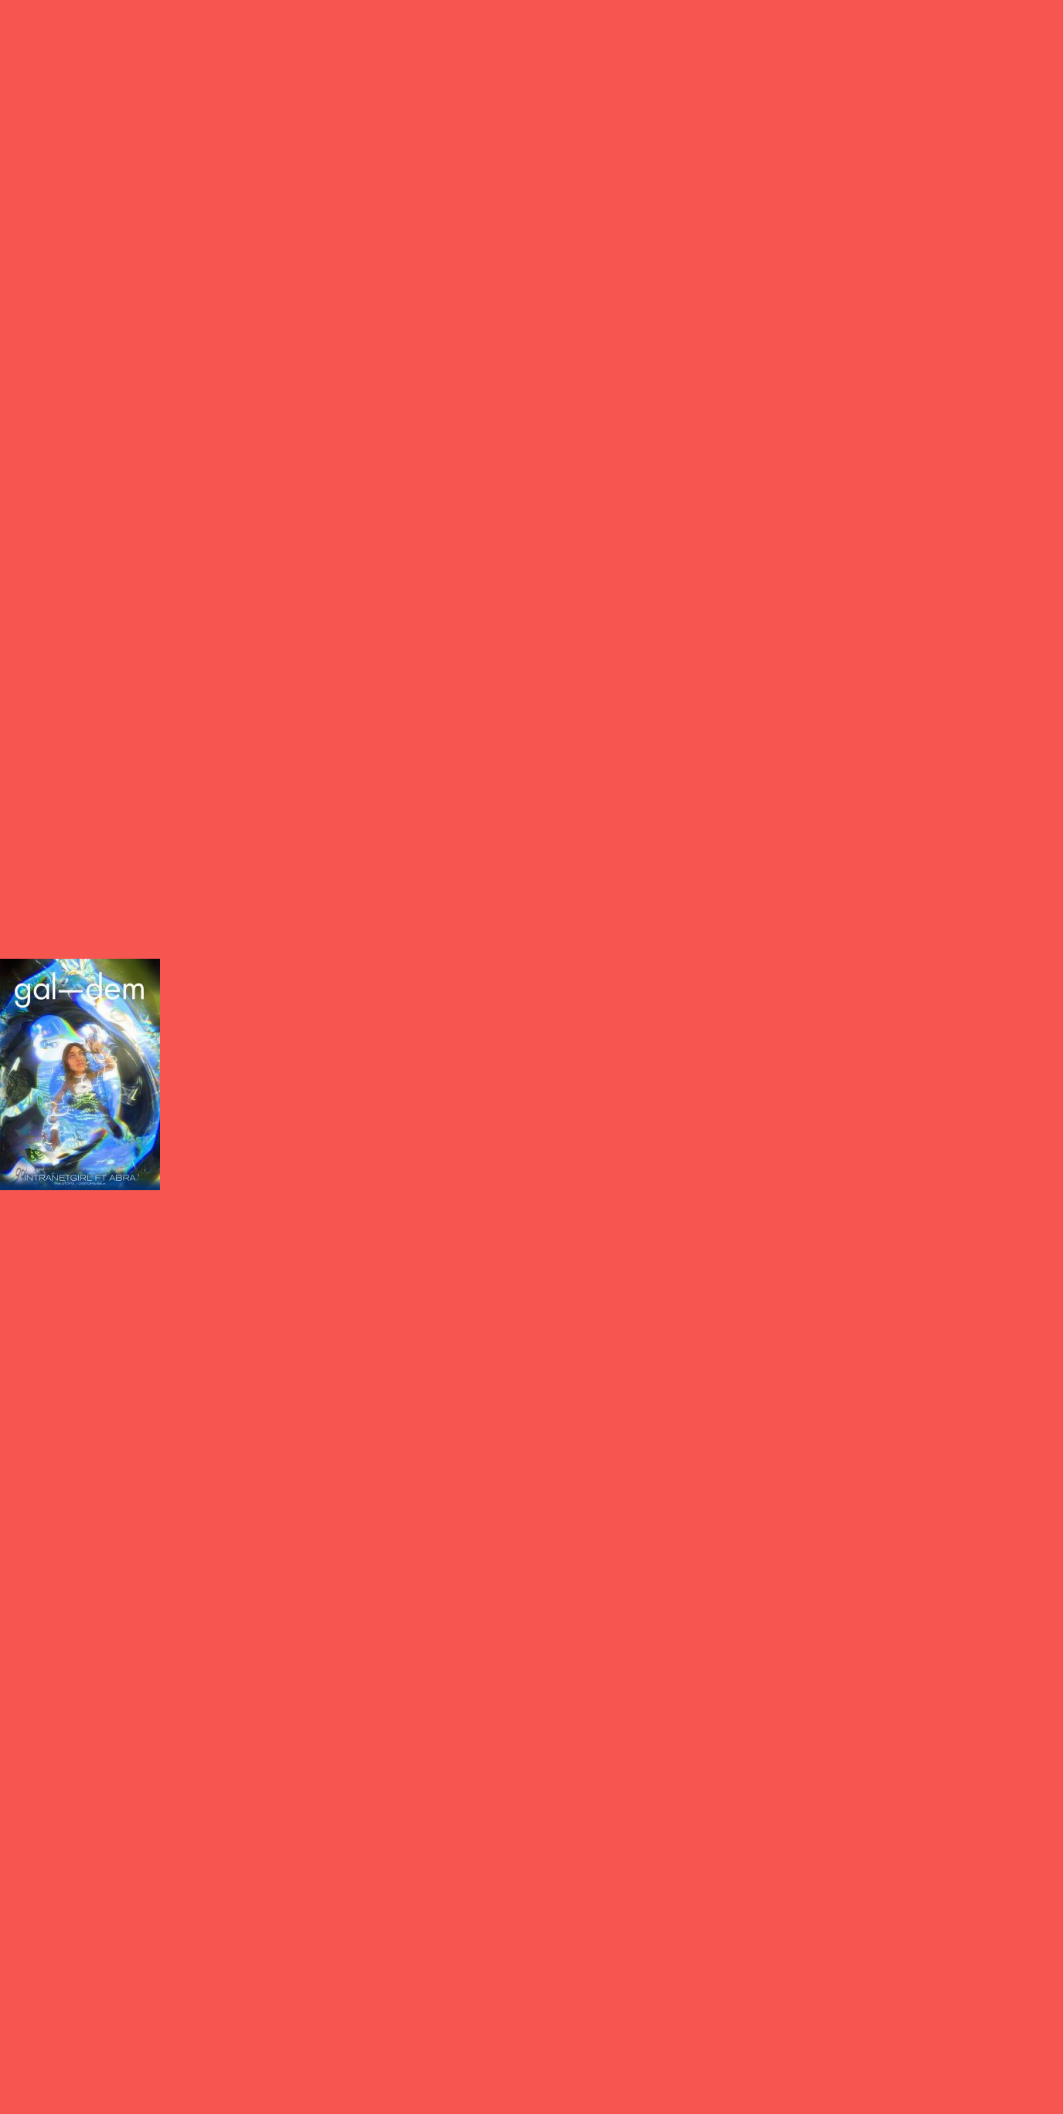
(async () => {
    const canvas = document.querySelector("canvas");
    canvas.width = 1063;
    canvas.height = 2114;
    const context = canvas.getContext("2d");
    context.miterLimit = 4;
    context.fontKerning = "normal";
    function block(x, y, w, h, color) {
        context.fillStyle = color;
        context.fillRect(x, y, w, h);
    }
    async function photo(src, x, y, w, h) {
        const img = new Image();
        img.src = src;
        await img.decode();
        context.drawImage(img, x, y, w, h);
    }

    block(0, 0, 1063, 2114, "rgb(247, 85, 80)");
    await photo("media/1.png", 0, 958, 160, 233);
})();
